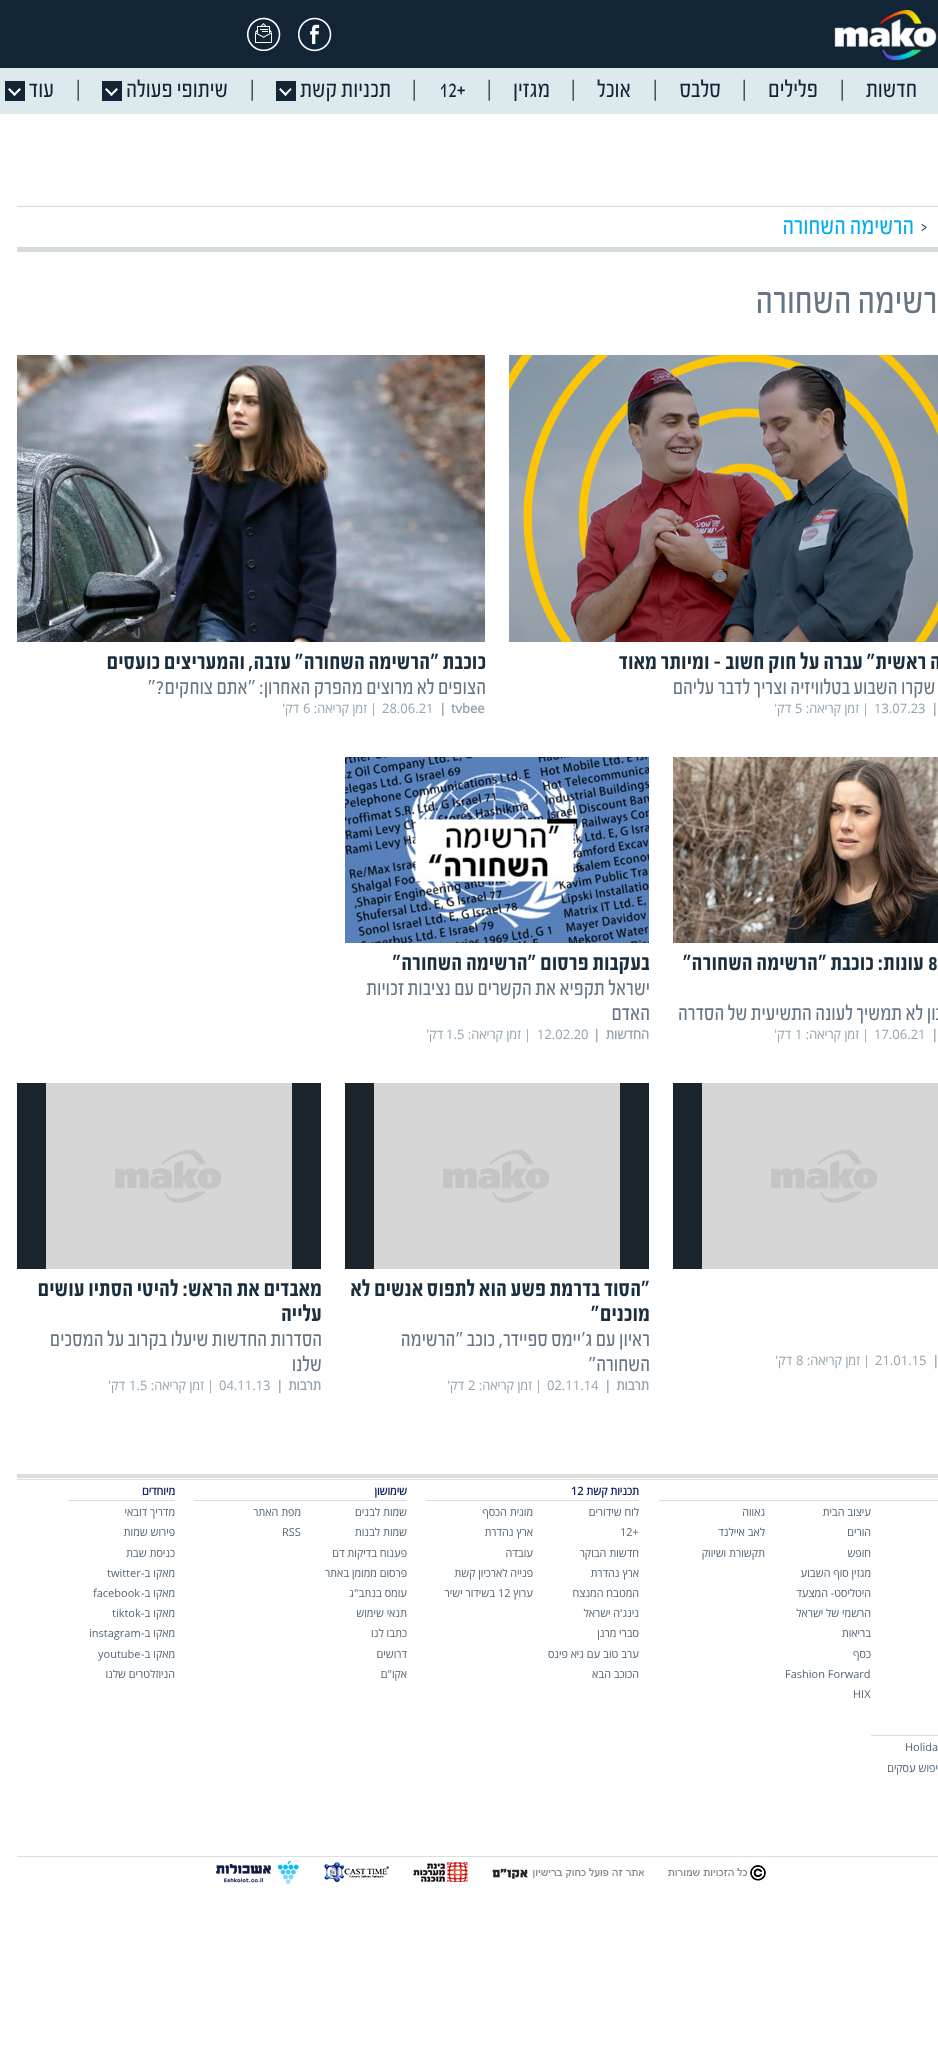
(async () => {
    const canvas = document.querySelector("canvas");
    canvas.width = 938;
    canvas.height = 2054;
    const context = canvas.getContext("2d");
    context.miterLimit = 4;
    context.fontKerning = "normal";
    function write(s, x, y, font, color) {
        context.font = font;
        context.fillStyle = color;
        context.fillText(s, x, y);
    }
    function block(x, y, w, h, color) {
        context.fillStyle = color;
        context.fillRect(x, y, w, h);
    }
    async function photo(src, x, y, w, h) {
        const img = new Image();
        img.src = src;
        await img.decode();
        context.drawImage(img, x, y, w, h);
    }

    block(0, 0, 938, 2054, "rgb(255, 255, 255)");
    block(0, 0, 938, 68, "rgb(18, 37, 54)");
    await photo("media/1.png", 834, 10, 103, 50);
    await photo("media/2.png", 298, 17, 34, 35);
    await photo("media/3.png", 247, 17, 34, 34);
    block(0, 68, 938, 46, "rgb(220, 233, 237)");
    context.direction = "rtl";
    write("חדשות", 917, 97, "26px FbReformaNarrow", "rgb(18, 37, 54)");
    context.direction = "ltr";
    write("|", 839, 97, "26px FbReformaNarrow", "rgb(18, 37, 54)");
    context.direction = "rtl";
    write("פלילים", 818, 97, "26px FbReformaNarrow", "rgb(18, 37, 54)");
    context.direction = "ltr";
    write("|", 741, 97, "26px FbReformaNarrow", "rgb(18, 37, 54)");
    context.direction = "rtl";
    write("סלבס", 721, 97, "26px FbReformaNarrow", "rgb(18, 37, 54)");
    context.direction = "ltr";
    write("|", 652, 97, "26px FbReformaNarrow", "rgb(18, 37, 54)");
    context.direction = "rtl";
    write("אוכל", 631, 97, "26px FbReformaNarrow", "rgb(18, 37, 54)");
    context.direction = "ltr";
    write("|", 570, 97, "26px FbReformaNarrow", "rgb(18, 37, 54)");
    context.direction = "rtl";
    write("מגזין", 550, 97, "26px FbReformaNarrow", "rgb(18, 37, 54)");
    context.direction = "ltr";
    write("|", 486, 97, "26px FbReformaNarrow", "rgb(18, 37, 54)");
    write("12+", 439, 97, "26px FbReformaNarrow", "rgb(18, 37, 54)");
    write("|", 411, 97, "26px FbReformaNarrow", "rgb(18, 37, 54)");
    context.direction = "rtl";
    write("תכניות קשת", 391, 97, "26px FbReformaNarrow", "rgb(18, 37, 54)");
    block(276, 81, 20, 20, "rgb(18, 37, 54)");
    context.fillStyle = "rgb(255, 255, 255)";
    context.beginPath();
    context.moveTo(284, 94.5);
    context.lineTo(290.5, 88);
    context.lineTo(291.5, 89.5);
    context.lineTo(285.5, 96);
    context.closePath();
    context.fill();
    context.beginPath();
    context.moveTo(279, 89.5);
    context.lineTo(280.5, 88);
    context.lineTo(287, 94.5);
    context.lineTo(285.5, 96);
    context.closePath();
    context.fill();
    context.direction = "ltr";
    write("|", 249, 97, "26px FbReformaNarrow", "rgb(18, 37, 54)");
    context.direction = "rtl";
    write("שיתופי פעולה", 228, 97, "26px FbReformaNarrow", "rgb(18, 37, 54)");
    block(102, 81, 20, 20, "rgb(18, 37, 54)");
    context.fillStyle = "rgb(255, 255, 255)";
    context.beginPath();
    context.moveTo(110, 94.5);
    context.lineTo(116.5, 88);
    context.lineTo(118, 89.5);
    context.lineTo(111.5, 96);
    context.closePath();
    context.fill();
    context.beginPath();
    context.moveTo(105, 89.5);
    context.lineTo(106.5, 88);
    context.lineTo(113, 94.5);
    context.lineTo(111.5, 96);
    context.closePath();
    context.fill();
    context.direction = "ltr";
    write("|", 75, 97, "26px FbReformaNarrow", "rgb(18, 37, 54)");
    context.direction = "rtl";
    write("עוד", 54, 97, "26px FbReformaNarrow", "rgb(18, 37, 54)");
    block(5, 81, 20, 20, "rgb(18, 37, 54)");
    context.fillStyle = "rgb(255, 255, 255)";
    context.beginPath();
    context.moveTo(13, 94.5);
    context.lineTo(19.5, 88);
    context.lineTo(21, 89.5);
    context.lineTo(14.5, 96);
    context.closePath();
    context.fill();
    context.beginPath();
    context.moveTo(8, 89.5);
    context.lineTo(9.5, 88);
    context.lineTo(16, 94.5);
    context.lineTo(14.5, 96);
    context.closePath();
    context.fill();
    block(17, 206, 921, 1, "rgb(212, 217, 218)");
    block(17, 247, 921, 5, "rgb(212, 217, 218)");
    context.direction = "ltr";
    write(">", 921, 232, "18px FbReformaNarrow", "rgb(27, 46, 62)");
    context.direction = "rtl";
    write("הרשימה השחורה", 914, 234, "27px FbReformaNarrow", "rgb(0, 173, 239)");
    write("הרשימה השחורה", 955, 313, "41px FbReformaNarrow", "rgb(101, 117, 132)");
    await photo("media/4.png", 509, 355, 429, 287);
    write("\"קופה ראשית\" עברה על חוק חשוב - ומיותר מאוד", 978, 669, "25px 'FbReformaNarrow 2'", "rgb(27, 46, 62)");
    write("דברים שקרו השבוע בטלוויזיה וצריך לדבר עליהם", 978, 694, "23px FbReformaNarrow", "rgb(101, 117, 132)");
    context.direction = "ltr";
    write("|", 931, 713, "bold 13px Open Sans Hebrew", "rgb(147, 164, 176)");
    write("13.07.23", 874, 713, "13px Open Sans Hebrew", "rgb(147, 164, 176)");
    write("|", 862, 713, "13px Open Sans Hebrew", "rgb(147, 164, 176)");
    context.direction = "rtl";
    write("זמן קריאה:", 859, 713, "13px Open Sans Hebrew", "rgb(147, 164, 176)");
    context.direction = "ltr";
    write("5", 795, 713, "13px Open Sans Hebrew", "rgb(147, 164, 176)");
    context.direction = "rtl";
    write("דק'", 791, 713, "13px Open Sans Hebrew", "rgb(147, 164, 176)");
    await photo("media/5.png", 17, 355, 468, 287);
    write("כוכבת \"הרשימה השחורה\" עזבה, והמעריצים כועסים", 486, 669, "25px 'FbReformaNarrow 2'", "rgb(27, 46, 62)");
    write("הצופים לא מרוצים מהפרק האחרון: \"אתם צוחקים?\"", 486, 694, "23px FbReformaNarrow", "rgb(101, 117, 132)");
    context.direction = "ltr";
    write("tvbee", 451, 713, "bold 13px Open Sans Hebrew", "rgb(147, 164, 176)");
    write("|", 439, 713, "bold 13px Open Sans Hebrew", "rgb(147, 164, 176)");
    write("28.06.21", 382, 713, "13px Open Sans Hebrew", "rgb(147, 164, 176)");
    write("|", 370, 713, "13px Open Sans Hebrew", "rgb(147, 164, 176)");
    context.direction = "rtl";
    write("זמן קריאה:", 367, 713, "13px Open Sans Hebrew", "rgb(147, 164, 176)");
    context.direction = "ltr";
    write("6", 303, 713, "13px Open Sans Hebrew", "rgb(147, 164, 176)");
    context.direction = "rtl";
    write("דק'", 299, 713, "13px Open Sans Hebrew", "rgb(147, 164, 176)");
    await photo("media/6.png", 673, 757, 265, 186);
    context.direction = "ltr";
    write("8", 928, 970, "25px 'FbReformaNarrow 2'", "rgb(27, 46, 62)");
    context.direction = "rtl";
    write("עונות: כוכבת \"הרשימה השחורה\"", 924, 970, "25px 'FbReformaNarrow 2'", "rgb(27, 46, 62)");
    write("מייגן בון לא תמשיך לעונה התשיעית של הסדרה", 978, 1020, "23px FbReformaNarrow", "rgb(101, 117, 132)");
    context.direction = "ltr";
    write("|", 931, 1039, "bold 13px Open Sans Hebrew", "rgb(147, 164, 176)");
    write("17.06.21", 874, 1039, "13px Open Sans Hebrew", "rgb(147, 164, 176)");
    write("|", 862, 1039, "13px Open Sans Hebrew", "rgb(147, 164, 176)");
    context.direction = "rtl";
    write("זמן קריאה:", 859, 1039, "13px Open Sans Hebrew", "rgb(147, 164, 176)");
    context.direction = "ltr";
    write("1", 795, 1039, "13px Open Sans Hebrew", "rgb(147, 164, 176)");
    context.direction = "rtl";
    write("דק'", 791, 1039, "13px Open Sans Hebrew", "rgb(147, 164, 176)");
    await photo("media/7.png", 345, 757, 304, 186);
    context.save();
    context.beginPath();
    context.rect(346, 950, 303, 25);
    context.clip();
    write("בעקבות פרסום \"הרשימה השחורה\"", 650, 970, "25px 'FbReformaNarrow 2'", "rgb(27, 46, 62)");
    context.restore();
    write("ישראל תקפיא את הקשרים עם נציבות זכויות", 650, 995, "23px FbReformaNarrow", "rgb(101, 117, 132)");
    write("האדם", 650, 1020, "23px FbReformaNarrow", "rgb(101, 117, 132)");
    write("החדשות", 649, 1039, "bold 13px Open Sans Hebrew", "rgb(147, 164, 176)");
    context.direction = "ltr";
    write("|", 593, 1039, "bold 13px Open Sans Hebrew", "rgb(147, 164, 176)");
    write("12.02.20", 537, 1039, "13px Open Sans Hebrew", "rgb(147, 164, 176)");
    write("|", 524, 1039, "13px Open Sans Hebrew", "rgb(147, 164, 176)");
    context.direction = "rtl";
    write("זמן קריאה:", 521, 1039, "13px Open Sans Hebrew", "rgb(147, 164, 176)");
    context.direction = "ltr";
    write("1.5", 446, 1039, "13px Open Sans Hebrew", "rgb(147, 164, 176)");
    context.direction = "rtl";
    write("דק'", 443, 1039, "13px Open Sans Hebrew", "rgb(147, 164, 176)");
    block(673, 1083, 29, 186, "rgb(26, 36, 45)");
    await photo("media/8.png", 702, 1083, 236, 186);
    context.direction = "ltr";
    write("|", 932, 1365, "bold 13px Open Sans Hebrew", "rgb(147, 164, 176)");
    write("21.01.15", 875, 1365, "13px Open Sans Hebrew", "rgb(147, 164, 176)");
    write("|", 863, 1365, "13px Open Sans Hebrew", "rgb(147, 164, 176)");
    context.direction = "rtl";
    write("זמן קריאה:", 860, 1365, "13px Open Sans Hebrew", "rgb(147, 164, 176)");
    context.direction = "ltr";
    write("8", 796, 1365, "13px Open Sans Hebrew", "rgb(147, 164, 176)");
    context.direction = "rtl";
    write("דק'", 792, 1365, "13px Open Sans Hebrew", "rgb(147, 164, 176)");
    block(345, 1083, 304, 186, "rgb(26, 36, 45)");
    await photo("media/9.png", 374, 1083, 246, 186);
    write("\"הסוד בדרמת פשע הוא לתפוס אנשים לא", 650, 1296, "25px 'FbReformaNarrow 2'", "rgb(27, 46, 62)");
    write("מוכנים\"", 650, 1321, "25px 'FbReformaNarrow 2'", "rgb(27, 46, 62)");
    write("ראיון עם ג'יימס ספיידר, כוכב \"הרשימה", 650, 1346, "23px FbReformaNarrow", "rgb(101, 117, 132)");
    write("השחורה\"", 650, 1371, "23px FbReformaNarrow", "rgb(101, 117, 132)");
    write("תרבות", 649, 1390, "bold 13px Open Sans Hebrew", "rgb(147, 164, 176)");
    context.direction = "ltr";
    write("|", 604, 1390, "bold 13px Open Sans Hebrew", "rgb(147, 164, 176)");
    write("02.11.14", 547, 1390, "13px Open Sans Hebrew", "rgb(147, 164, 176)");
    write("|", 535, 1390, "13px Open Sans Hebrew", "rgb(147, 164, 176)");
    context.direction = "rtl";
    write("זמן קריאה:", 532, 1390, "13px Open Sans Hebrew", "rgb(147, 164, 176)");
    context.direction = "ltr";
    write("2", 468, 1390, "13px Open Sans Hebrew", "rgb(147, 164, 176)");
    context.direction = "rtl";
    write("דק'", 464, 1390, "13px Open Sans Hebrew", "rgb(147, 164, 176)");
    block(17, 1083, 304, 186, "rgb(26, 36, 45)");
    await photo("media/9.png", 46, 1083, 246, 186);
    write("מאבדים את הראש: להיטי הסתיו עושים", 322, 1296, "25px 'FbReformaNarrow 2'", "rgb(27, 46, 62)");
    write("עלייה", 322, 1321, "25px 'FbReformaNarrow 2'", "rgb(27, 46, 62)");
    write("הסדרות החדשות שיעלו בקרוב על המסכים", 322, 1346, "23px FbReformaNarrow", "rgb(101, 117, 132)");
    write("שלנו", 322, 1371, "23px FbReformaNarrow", "rgb(101, 117, 132)");
    write("תרבות", 321, 1390, "bold 13px Open Sans Hebrew", "rgb(147, 164, 176)");
    context.direction = "ltr";
    write("|", 276, 1390, "bold 13px Open Sans Hebrew", "rgb(147, 164, 176)");
    write("04.11.13", 219, 1390, "13px Open Sans Hebrew", "rgb(147, 164, 176)");
    write("|", 207, 1390, "13px Open Sans Hebrew", "rgb(147, 164, 176)");
    context.direction = "rtl";
    write("זמן קריאה:", 204, 1390, "13px Open Sans Hebrew", "rgb(147, 164, 176)");
    context.direction = "ltr";
    write("1.5", 129, 1390, "13px Open Sans Hebrew", "rgb(147, 164, 176)");
    context.direction = "rtl";
    write("דק'", 125, 1390, "13px Open Sans Hebrew", "rgb(147, 164, 176)");
    block(17, 1474, 921, 4, "rgb(223, 222, 222)");
    block(17, 1856, 921, 1, "rgb(223, 222, 222)");
    block(17, 1479, 921, 1, "rgb(223, 222, 222)");
    block(659, 1500, 279, 1, "rgb(223, 222, 222)");
    write("עיצוב הבית", 871, 1516, "11px Open Sans Hebrew", "rgb(82, 100, 116)");
    write("הורים", 871, 1536, "11px Open Sans Hebrew", "rgb(82, 100, 116)");
    write("חופש", 871, 1557, "11px Open Sans Hebrew", "rgb(82, 100, 116)");
    write("מגזין סוף השבוע", 871, 1577, "11px Open Sans Hebrew", "rgb(82, 100, 116)");
    write("היטליסט- המצעד", 871, 1597, "11px Open Sans Hebrew", "rgb(82, 100, 116)");
    write("הרשמי של ישראל", 871, 1617, "11px Open Sans Hebrew", "rgb(82, 100, 116)");
    write("בריאות", 871, 1637, "11px Open Sans Hebrew", "rgb(82, 100, 116)");
    write("כסף", 871, 1658, "11px Open Sans Hebrew", "rgb(82, 100, 116)");
    context.direction = "ltr";
    write("Fashion Forward", 785, 1678, "11px Open Sans Hebrew", "rgb(82, 100, 116)");
    write("HIX", 853, 1698, "11px Open Sans Hebrew", "rgb(82, 100, 116)");
    context.direction = "rtl";
    write("גאווה", 765, 1516, "11px Open Sans Hebrew", "rgb(82, 100, 116)");
    write("לאב איילנד", 765, 1536, "11px Open Sans Hebrew", "rgb(82, 100, 116)");
    write("תקשורת ושיווק", 765, 1557, "11px Open Sans Hebrew", "rgb(82, 100, 116)");
    write("תכניות קשת", 639, 1495, "bold 11px Open Sans Hebrew", "rgb(18, 37, 99)");
    context.direction = "ltr";
    write("12", 571, 1495, "bold 11px Open Sans Hebrew", "rgb(18, 37, 99)");
    block(426, 1500, 213, 1, "rgb(223, 222, 222)");
    context.direction = "rtl";
    write("לוח שידורים", 639, 1516, "11px Open Sans Hebrew", "rgb(82, 100, 116)");
    context.direction = "ltr";
    write("12+", 620, 1536, "11px Open Sans Hebrew", "rgb(82, 100, 116)");
    context.direction = "rtl";
    write("חדשות הבוקר", 639, 1557, "11px Open Sans Hebrew", "rgb(82, 100, 116)");
    write("ארץ נהדרת", 639, 1577, "11px Open Sans Hebrew", "rgb(82, 100, 116)");
    write("המטבח המנצח", 639, 1597, "11px Open Sans Hebrew", "rgb(82, 100, 116)");
    write("נינג'ה ישראל", 639, 1617, "11px Open Sans Hebrew", "rgb(82, 100, 116)");
    write("סברי מרנן", 639, 1637, "11px Open Sans Hebrew", "rgb(82, 100, 116)");
    write("ערב טוב עם גיא פינס", 639, 1658, "11px Open Sans Hebrew", "rgb(82, 100, 116)");
    write("הכוכב הבא", 639, 1678, "11px Open Sans Hebrew", "rgb(82, 100, 116)");
    write("מונית הכסף", 533, 1516, "11px Open Sans Hebrew", "rgb(82, 100, 116)");
    write("ארץ נהדרת", 533, 1536, "11px Open Sans Hebrew", "rgb(82, 100, 116)");
    write("עובדה", 533, 1557, "11px Open Sans Hebrew", "rgb(82, 100, 116)");
    write("פנייה לארכיון קשת", 533, 1577, "11px Open Sans Hebrew", "rgb(82, 100, 116)");
    write("ערוץ", 533, 1597, "11px Open Sans Hebrew", "rgb(82, 100, 116)");
    context.direction = "ltr";
    write("12", 498, 1597, "11px Open Sans Hebrew", "rgb(82, 100, 116)");
    context.direction = "rtl";
    write("בשידור ישיר", 495, 1597, "11px Open Sans Hebrew", "rgb(82, 100, 116)");
    write("שימושון", 407, 1495, "bold 11px Open Sans Hebrew", "rgb(18, 37, 99)");
    block(194, 1500, 213, 1, "rgb(223, 222, 222)");
    write("שמות לבנים", 407, 1516, "11px Open Sans Hebrew", "rgb(82, 100, 116)");
    write("שמות לבנות", 407, 1536, "11px Open Sans Hebrew", "rgb(82, 100, 116)");
    write("פענוח בדיקות דם", 407, 1557, "11px Open Sans Hebrew", "rgb(82, 100, 116)");
    write("פרסום ממומן באתר", 407, 1577, "11px Open Sans Hebrew", "rgb(82, 100, 116)");
    write("עומס בנתב\"ג", 407, 1597, "11px Open Sans Hebrew", "rgb(82, 100, 116)");
    write("תנאי שימוש", 407, 1617, "11px Open Sans Hebrew", "rgb(82, 100, 116)");
    write("כתבו לנו", 407, 1637, "11px Open Sans Hebrew", "rgb(82, 100, 116)");
    write("דרושים", 407, 1658, "11px Open Sans Hebrew", "rgb(82, 100, 116)");
    write("אקו\"ם", 407, 1678, "11px Open Sans Hebrew", "rgb(82, 100, 116)");
    write("מפת האתר", 301, 1516, "11px Open Sans Hebrew", "rgb(82, 100, 116)");
    context.direction = "ltr";
    write("RSS", 282, 1536, "11px Open Sans Hebrew", "rgb(82, 100, 116)");
    context.direction = "rtl";
    write("מיוחדים", 175, 1495, "bold 11px Open Sans Hebrew", "rgb(18, 37, 99)");
    block(68, 1500, 107, 1, "rgb(223, 222, 222)");
    write("מדריך דובאי", 175, 1516, "11px Open Sans Hebrew", "rgb(82, 100, 116)");
    write("פירוש שמות", 175, 1536, "11px Open Sans Hebrew", "rgb(82, 100, 116)");
    write("כניסת שבת", 175, 1557, "11px Open Sans Hebrew", "rgb(82, 100, 116)");
    write("מאקו ב-", 175, 1577, "11px Open Sans Hebrew", "rgb(82, 100, 116)");
    context.direction = "ltr";
    write("twitter", 107, 1577, "11px Open Sans Hebrew", "rgb(82, 100, 116)");
    context.direction = "rtl";
    write("מאקו ב-", 175, 1597, "11px Open Sans Hebrew", "rgb(82, 100, 116)");
    context.direction = "ltr";
    write("facebook", 93, 1597, "11px Open Sans Hebrew", "rgb(82, 100, 116)");
    context.direction = "rtl";
    write("מאקו ב-", 175, 1617, "11px Open Sans Hebrew", "rgb(82, 100, 116)");
    context.direction = "ltr";
    write("tiktok", 112, 1617, "11px Open Sans Hebrew", "rgb(82, 100, 116)");
    context.direction = "rtl";
    write("מאקו ב-", 175, 1637, "11px Open Sans Hebrew", "rgb(82, 100, 116)");
    context.direction = "ltr";
    write("instagram", 89, 1637, "11px Open Sans Hebrew", "rgb(82, 100, 116)");
    context.direction = "rtl";
    write("מאקו ב-", 175, 1658, "11px Open Sans Hebrew", "rgb(82, 100, 116)");
    context.direction = "ltr";
    write("youtube", 98, 1658, "11px Open Sans Hebrew", "rgb(82, 100, 116)");
    context.direction = "rtl";
    write("הניוזלטרים שלנו", 175, 1678, "11px Open Sans Hebrew", "rgb(82, 100, 116)");
    block(871, 1735, 67, 1, "rgb(223, 222, 222)");
    context.direction = "ltr";
    write("Holida", 905, 1751, "11px Open Sans Hebrew", "rgb(82, 100, 116)");
    context.direction = "rtl";
    write("- חיפוש עסקים", 951, 1772, "11px Open Sans Hebrew", "rgb(82, 100, 116)");
    await photo("media/10.png", 668, 1862, 98, 22);
    await photo("media/11.png", 492, 1866, 152, 17);
    await photo("media/12.png", 413, 1861, 55, 23);
    await photo("media/13.png", 324, 1862, 65, 20);
    await photo("media/14.png", 216, 1861, 83, 23);
})();
